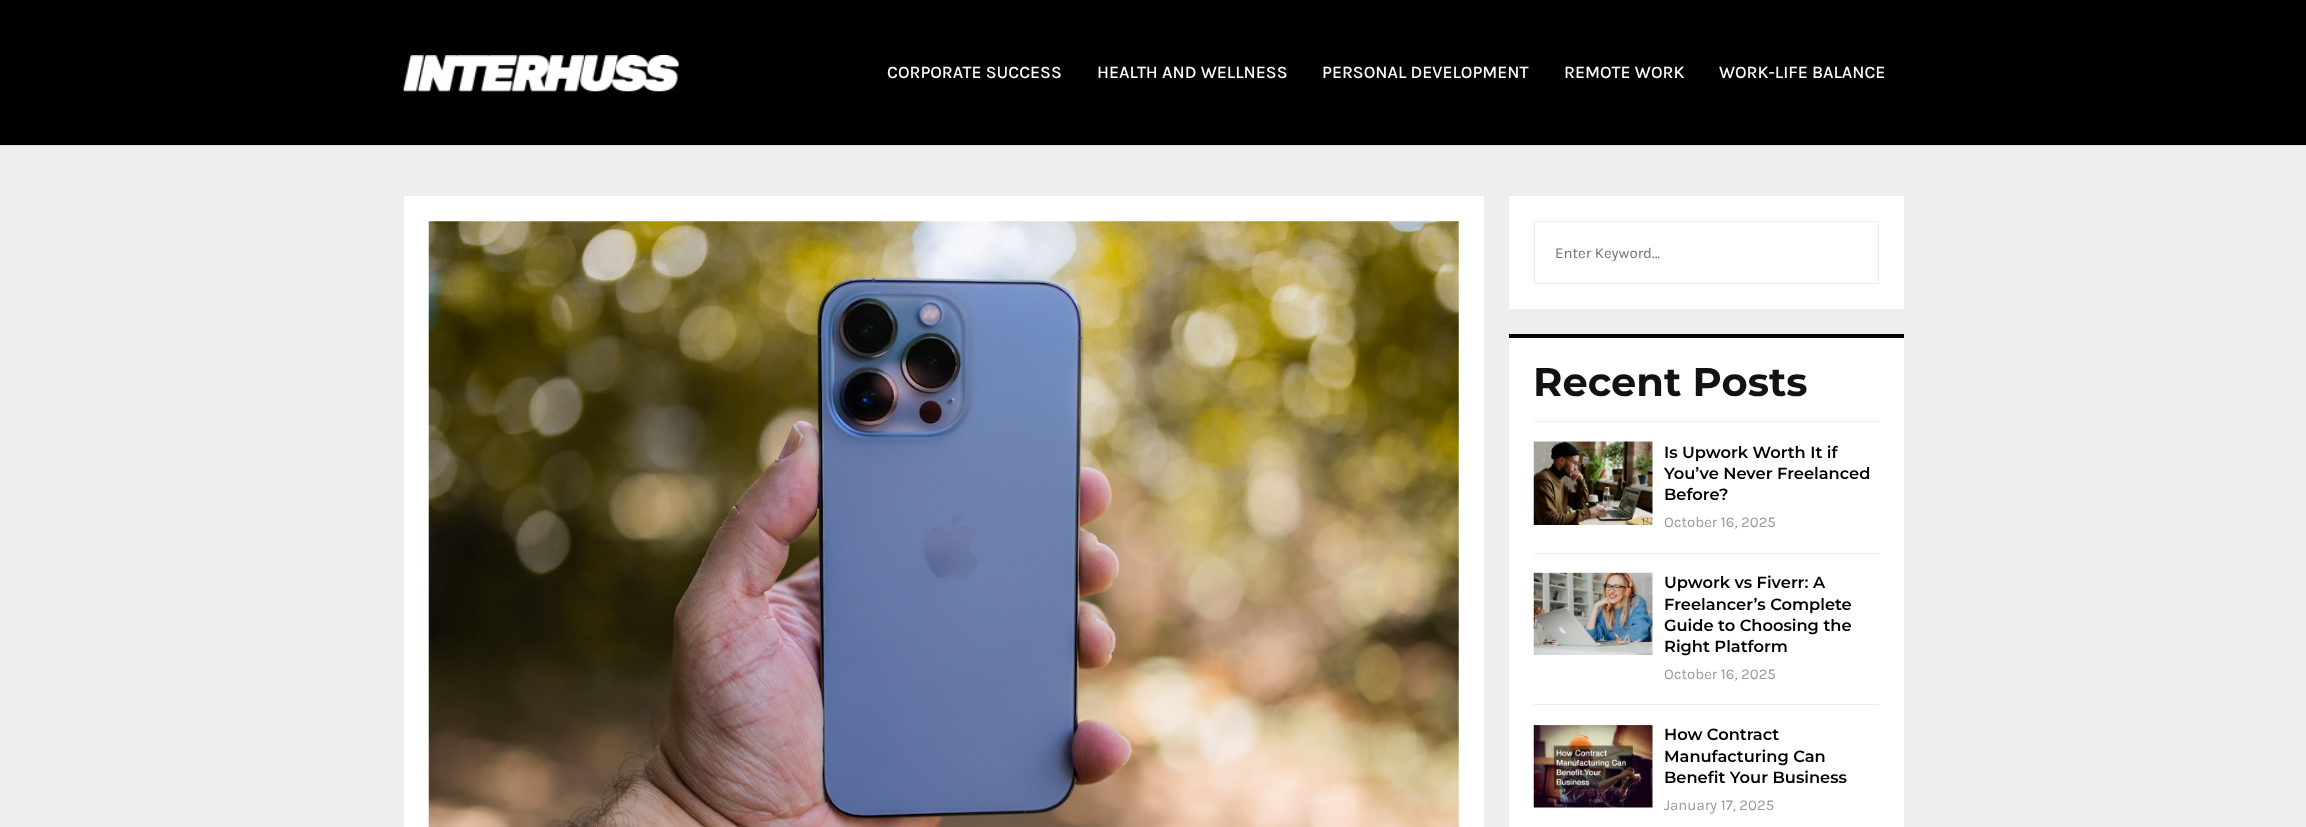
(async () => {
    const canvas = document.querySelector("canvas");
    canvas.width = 2306;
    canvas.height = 827;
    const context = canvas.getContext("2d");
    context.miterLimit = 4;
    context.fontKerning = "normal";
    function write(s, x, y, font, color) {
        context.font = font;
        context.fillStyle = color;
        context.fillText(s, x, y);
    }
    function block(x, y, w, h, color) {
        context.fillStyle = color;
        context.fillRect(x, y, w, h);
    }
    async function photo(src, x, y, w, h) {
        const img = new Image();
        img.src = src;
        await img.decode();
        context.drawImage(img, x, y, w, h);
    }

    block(0, 0, 2306, 827, "rgb(238, 238, 238)");
    block(0, 0, 2306, 145, "rgb(0, 0, 0)");
    block(0, 145, 2306, 1, "rgb(221, 221, 221)");
    await photo("media/1.png", 403, 55, 276, 37);
    write("CORPORATE SUCCESS", 887, 78, "500 17.5px Karla", "rgb(255, 255, 255)");
    write("HEALTH AND WELLNESS", 1097, 78, "500 17.5px Karla", "rgb(255, 255, 255)");
    write("PERSONAL DEVELOPMENT", 1322, 78, "500 17.5px Karla", "rgb(255, 255, 255)");
    write("REMOTE WORK", 1564, 78, "500 17.5px Karla", "rgb(255, 255, 255)");
    write("WORK-LIFE BALANCE", 1719, 78, "500 17.5px Karla", "rgb(255, 255, 255)");
    block(404, 196, 1080, 631, "rgb(255, 255, 255)");
    await photo("media/2.png", 428, 221, 1031, 606);
    block(1509, 196, 395, 113, "rgb(255, 255, 255)");
    context.strokeStyle = "rgb(236, 236, 236)";
    context.strokeRect(1534.5, 221.5, 344, 62);
    context.save();
    context.beginPath();
    context.rect(1555, 244, 234, 17);
    context.clip();
    write("Enter Keyword...", 1555, 258, "15px Karla", "rgb(113, 113, 113)");
    context.restore();
    block(1509, 334, 395, 4, "rgb(0, 0, 0)");
    block(1509, 338, 395, 489, "rgb(255, 255, 255)");
    write("Recent Posts", 1533, 396, "bold 40px Montserrat", "rgb(18, 18, 18)");
    block(1534, 421, 345, 1, "rgb(236, 236, 236)");
    await photo("media/3.png", 1533, 441, 120, 84);
    write("Is Upwork Worth It if", 1664, 458, "600 16.25px Montserrat", "rgb(0, 0, 0)");
    write("You’ve Never Freelanced", 1664, 479, "600 16.25px Montserrat", "rgb(0, 0, 0)");
    write("Before?", 1664, 500, "600 16.25px Montserrat", "rgb(0, 0, 0)");
    write("October 16, 2025", 1664, 527, "15px Karla", "rgb(153, 153, 153)");
    block(1534, 553, 345, 1, "rgb(236, 236, 236)");
    await photo("media/4.png", 1533, 572, 120, 83);
    write("Upwork vs Fiverr: A", 1664, 588, "600 16.25px Montserrat", "rgb(0, 0, 0)");
    write("Freelancer’s Complete", 1664, 610, "600 16.25px Montserrat", "rgb(0, 0, 0)");
    write("Guide to Choosing the", 1664, 631, "600 16.25px Montserrat", "rgb(0, 0, 0)");
    write("Right Platform", 1664, 652, "600 16.25px Montserrat", "rgb(0, 0, 0)");
    write("October 16, 2025", 1664, 679, "15px Karla", "rgb(153, 153, 153)");
    block(1534, 704, 345, 1, "rgb(236, 236, 236)");
    await photo("media/5.png", 1533, 725, 120, 83);
    write("How Contract", 1664, 740, "600 16.25px Montserrat", "rgb(0, 0, 0)");
    write("Manufacturing Can", 1664, 762, "600 16.25px Montserrat", "rgb(0, 0, 0)");
    write("Benefit Your Business", 1664, 783, "600 16.25px Montserrat", "rgb(0, 0, 0)");
    write("January 17, 2025", 1664, 810, "15px Karla", "rgb(153, 153, 153)");
})();
